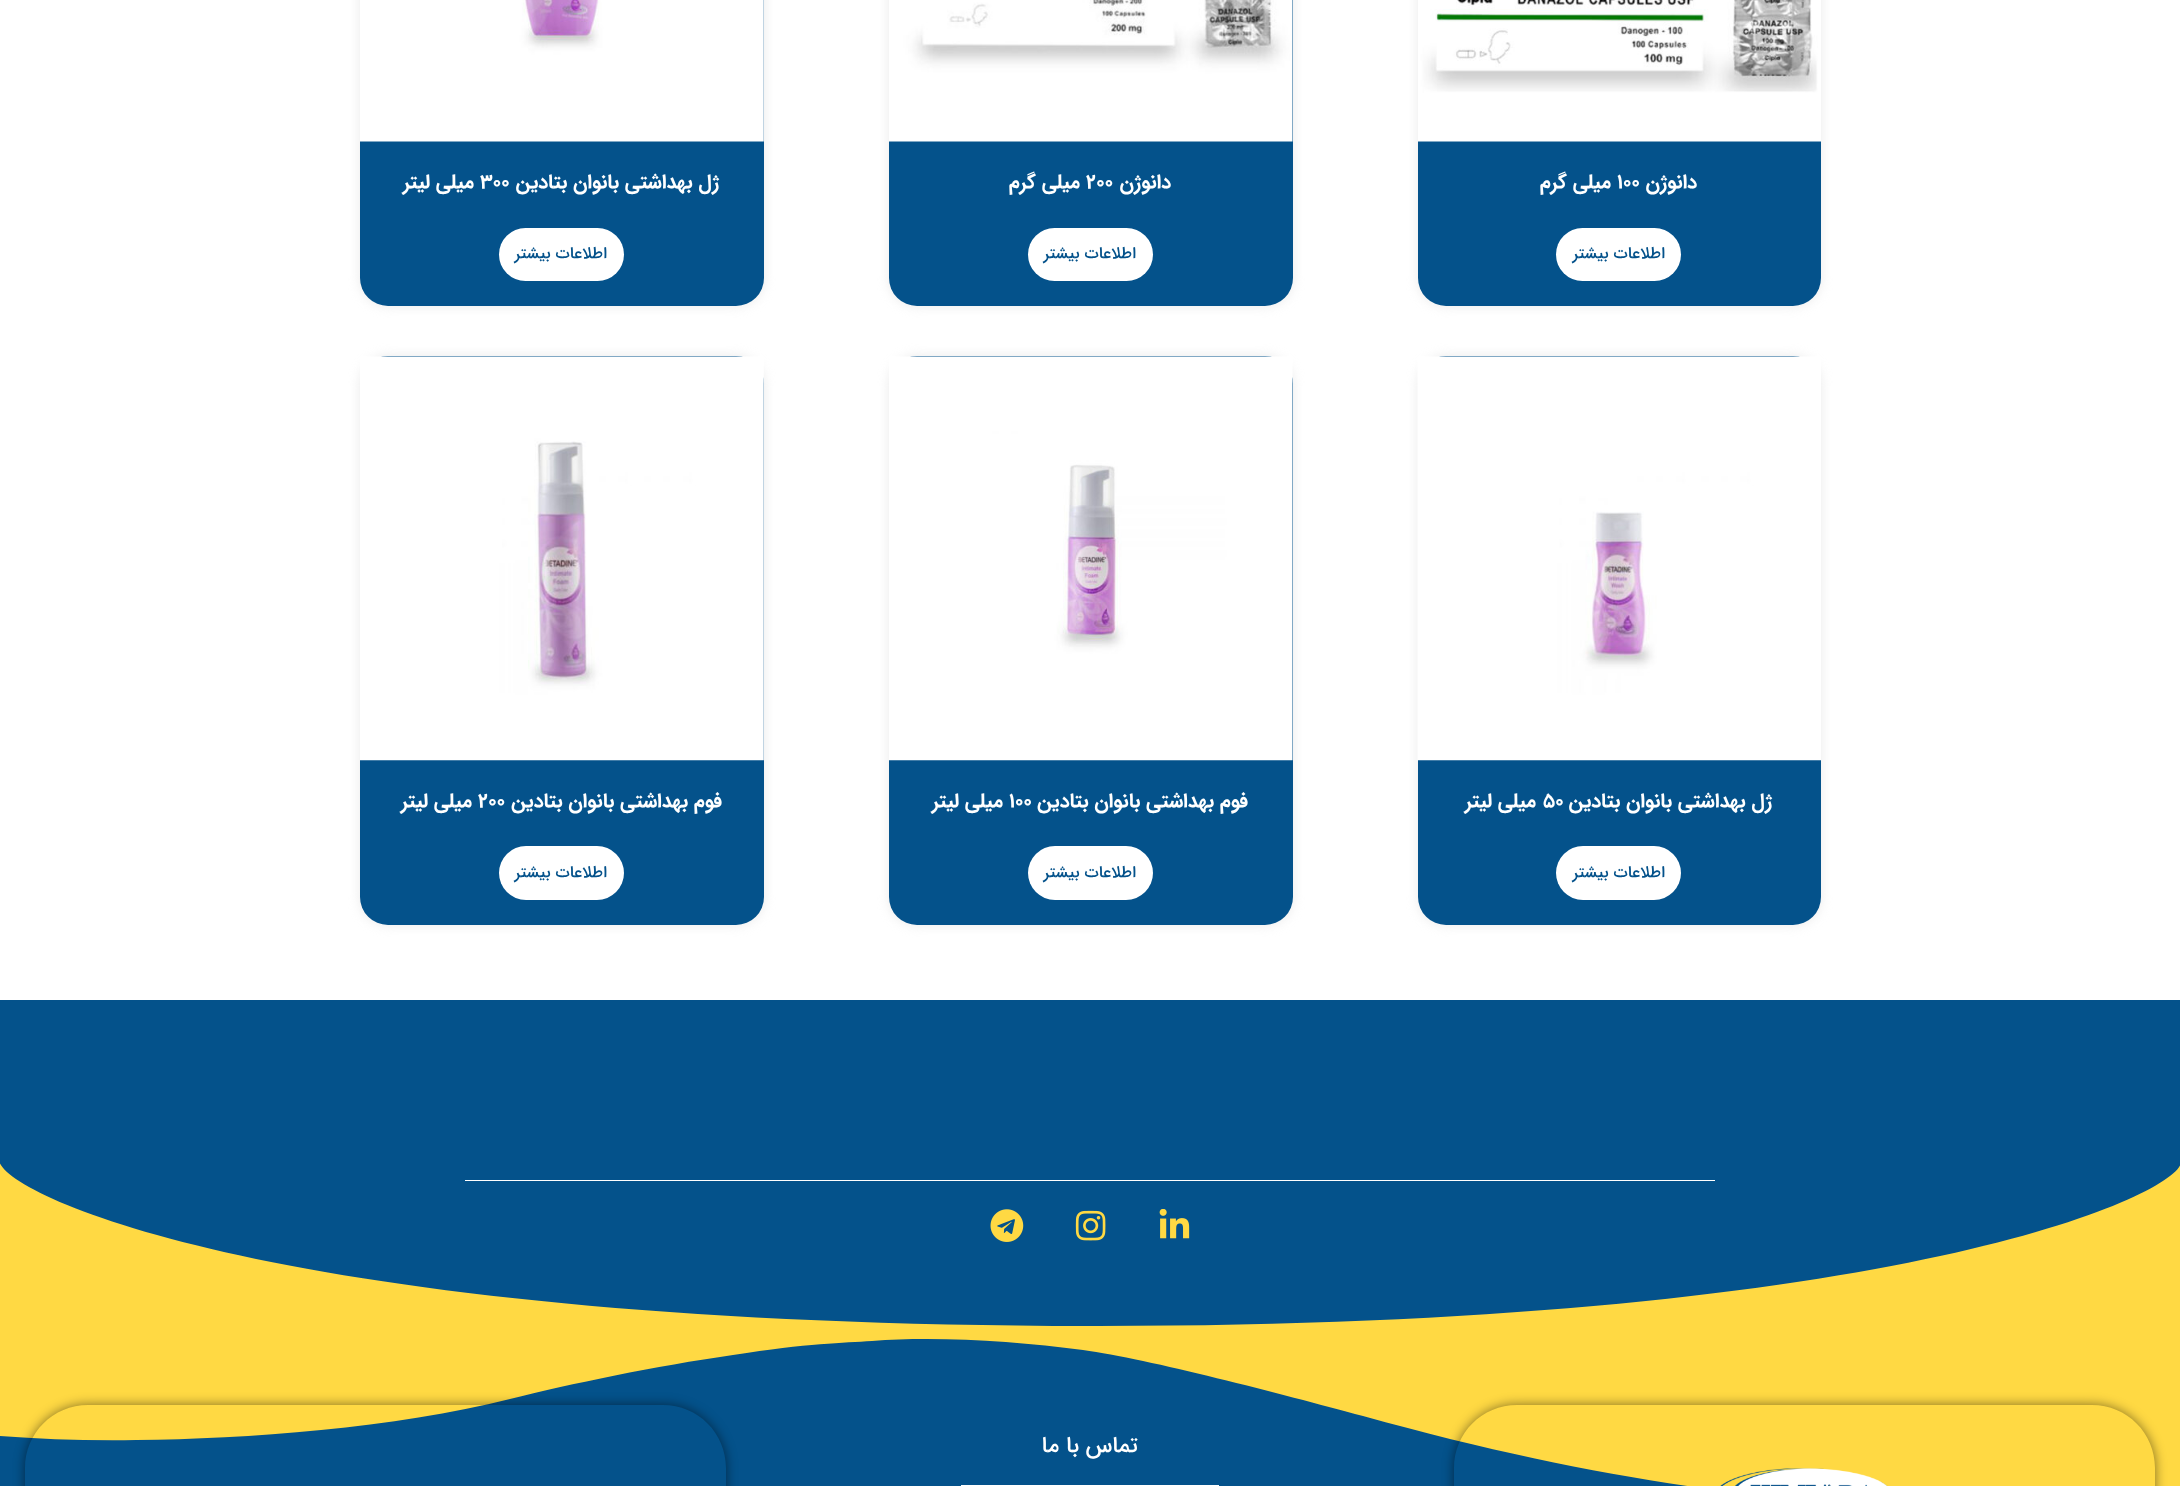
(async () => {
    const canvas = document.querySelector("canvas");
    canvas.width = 2180;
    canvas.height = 1486;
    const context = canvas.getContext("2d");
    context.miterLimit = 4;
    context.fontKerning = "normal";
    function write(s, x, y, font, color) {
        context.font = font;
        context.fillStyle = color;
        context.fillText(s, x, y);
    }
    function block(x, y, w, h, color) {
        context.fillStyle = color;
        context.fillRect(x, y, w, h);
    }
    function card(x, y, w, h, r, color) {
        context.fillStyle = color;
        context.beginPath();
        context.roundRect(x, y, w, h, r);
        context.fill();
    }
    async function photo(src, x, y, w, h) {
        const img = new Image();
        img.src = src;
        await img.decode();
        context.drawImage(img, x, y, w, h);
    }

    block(0, 0, 2180, 1486, "rgb(255, 255, 255)");
    context.fillStyle = "rgba(213, 213, 213, 0.5)";
    context.filter = "blur(6px)";
    context.beginPath();
    context.roundRect(1418, -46, 403, 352, 28);
    context.fill();
    context.filter = "none";
    card(1418, -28, 403, 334, 28, "rgb(4, 82, 139)");
    await photo("media/1.png", 1418, 0, 403, 142);
    context.direction = "rtl";
    write("دانوژن", 1697, 188, "bold 20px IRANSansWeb", "rgb(255, 255, 255)");
    context.direction = "ltr";
    write("۱۰۰", 1617, 188, "bold 20px IRANSansWeb", "rgb(255, 255, 255)");
    context.direction = "rtl";
    write("میلی گرم", 1611, 188, "bold 20px IRANSansWeb", "rgb(255, 255, 255)");
    card(1556, 228, 125, 53, 26.5, "rgb(255, 255, 255)");
    write("اطلاعات بیشتر", 1665, 258, "500 16.25px IRANSansWeb", "rgb(4, 82, 139)");
    context.fillStyle = "rgba(213, 213, 213, 0.5)";
    context.filter = "blur(6px)";
    context.beginPath();
    context.roundRect(889, -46, 404, 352, 28);
    context.fill();
    context.filter = "none";
    card(889, -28, 404, 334, 28, "rgb(4, 82, 139)");
    await photo("media/2.png", 889, 0, 404, 142);
    write("دانوژن", 1171, 188, "bold 20px IRANSansWeb", "rgb(255, 255, 255)");
    context.direction = "ltr";
    write("۲۰۰", 1086, 188, "bold 20px IRANSansWeb", "rgb(255, 255, 255)");
    context.direction = "rtl";
    write("میلی گرم", 1080, 188, "bold 20px IRANSansWeb", "rgb(255, 255, 255)");
    card(1028, 228, 125, 53, 26.5, "rgb(255, 255, 255)");
    write("اطلاعات بیشتر", 1136, 258, "500 16.25px IRANSansWeb", "rgb(4, 82, 139)");
    context.fillStyle = "rgba(213, 213, 213, 0.5)";
    context.filter = "blur(6px)";
    context.beginPath();
    context.roundRect(360, -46, 404, 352, 28);
    context.fill();
    context.filter = "none";
    card(360, -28, 404, 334, 28, "rgb(4, 82, 139)");
    await photo("media/3.png", 360, 0, 404, 142);
    write("ژل بهداشتی بانوان بتادین", 719, 188, "bold 20px IRANSansWeb", "rgb(255, 255, 255)");
    context.direction = "ltr";
    write("۳۰۰", 480, 188, "bold 20px IRANSansWeb", "rgb(255, 255, 255)");
    context.direction = "rtl";
    write("میلی لیتر", 474, 188, "bold 20px IRANSansWeb", "rgb(255, 255, 255)");
    card(499, 228, 125, 53, 26.5, "rgb(255, 255, 255)");
    write("اطلاعات بیشتر", 607, 258, "500 16.25px IRANSansWeb", "rgb(4, 82, 139)");
    context.fillStyle = "rgba(213, 213, 213, 0.5)";
    context.filter = "blur(6px)";
    context.beginPath();
    context.roundRect(1418, 356, 403, 569, 28);
    context.fill();
    context.filter = "none";
    card(1418, 356, 403, 569, 28, "rgb(4, 82, 139)");
    await photo("media/4.png", 1417, 356, 404, 405);
    write("ژل بهداشتی بانوان بتادین", 1772, 807, "bold 20px IRANSansWeb", "rgb(255, 255, 255)");
    context.direction = "ltr";
    write("۵۰", 1543, 807, "bold 20px IRANSansWeb", "rgb(255, 255, 255)");
    context.direction = "rtl";
    write("میلی لیتر", 1536, 807, "bold 20px IRANSansWeb", "rgb(255, 255, 255)");
    card(1556, 846, 125, 54, 27, "rgb(255, 255, 255)");
    write("اطلاعات بیشتر", 1665, 877, "500 16.25px IRANSansWeb", "rgb(4, 82, 139)");
    context.fillStyle = "rgba(213, 213, 213, 0.5)";
    context.filter = "blur(6px)";
    context.beginPath();
    context.roundRect(889, 356, 404, 569, 28);
    context.fill();
    context.filter = "none";
    card(889, 356, 404, 569, 28, "rgb(4, 82, 139)");
    await photo("media/5.png", 889, 356, 404, 405);
    write("فوم بهداشتی بانوان بتادین", 1248, 807, "bold 20px IRANSansWeb", "rgb(255, 255, 255)");
    context.direction = "ltr";
    write("۱۰۰", 1009, 807, "bold 20px IRANSansWeb", "rgb(255, 255, 255)");
    context.direction = "rtl";
    write("میلی لیتر", 1003, 807, "bold 20px IRANSansWeb", "rgb(255, 255, 255)");
    card(1028, 846, 125, 54, 27, "rgb(255, 255, 255)");
    write("اطلاعات بیشتر", 1136, 877, "500 16.25px IRANSansWeb", "rgb(4, 82, 139)");
    context.fillStyle = "rgba(213, 213, 213, 0.5)";
    context.filter = "blur(6px)";
    context.beginPath();
    context.roundRect(360, 356, 404, 569, 28);
    context.fill();
    context.filter = "none";
    card(360, 356, 404, 569, 28, "rgb(4, 82, 139)");
    await photo("media/6.png", 360, 356, 404, 405);
    write("فوم بهداشتی بانوان بتادین", 722, 807, "bold 20px IRANSansWeb", "rgb(255, 255, 255)");
    context.direction = "ltr";
    write("۲۰۰", 478, 807, "bold 20px IRANSansWeb", "rgb(255, 255, 255)");
    context.direction = "rtl";
    write("میلی لیتر", 472, 807, "bold 20px IRANSansWeb", "rgb(255, 255, 255)");
    card(499, 846, 125, 54, 27, "rgb(255, 255, 255)");
    write("اطلاعات بیشتر", 607, 877, "500 16.25px IRANSansWeb", "rgb(4, 82, 139)");
    block(0, 1000, 2180, 326, "rgb(4, 82, 139)");
    context.fillStyle = "rgb(255, 217, 67)";
    context.beginPath();
    context.moveTo(1090, 1326);
    context.bezierCurveTo(276, 1325, 1, 1194, -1, 1160);
    context.lineTo(-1, 1331);
    context.lineTo(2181, 1331);
    context.lineTo(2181, 1162);
    context.bezierCurveTo(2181, 1193, 1904, 1327, 1090, 1326);
    context.closePath();
    context.fill();
    block(465, 1180, 1250, 1, "rgb(255, 255, 255)");
    await photo("media/7.png", 1159, 1209, 31, 30);
    await photo("media/8.png", 1075, 1210, 31, 31);
    await photo("media/9.png", 990, 1209, 34, 33);
    block(0, 1339, 1688, 147, "rgb(4, 82, 139)");
    context.fillStyle = "rgb(255, 217, 67)";
    context.beginPath();
    context.moveTo(872, 1341);
    context.bezierCurveTo(935, 1336, 1016, 1341, 1083, 1350);
    context.bezierCurveTo(1149, 1359, 1281, 1394, 1363, 1416);
    context.bezierCurveTo(1575, 1475, 1737, 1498, 1901, 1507);
    context.bezierCurveTo(1967, 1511, 2037, 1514, 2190, 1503);
    context.bezierCurveTo(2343, 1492, 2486, 1456, 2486, 1456);
    context.lineTo(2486, 1329);
    context.lineTo(-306, 1329);
    context.lineTo(-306, 1384);
    context.bezierCurveTo(-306, 1384, -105, 1444, 136, 1440);
    context.bezierCurveTo(246, 1439, 395, 1428, 510, 1399);
    context.bezierCurveTo(570, 1384, 656, 1366, 733, 1355);
    context.bezierCurveTo(809, 1343, 843, 1343, 872, 1341);
    context.closePath();
    context.fill();
    context.save();
    context.beginPath();
    context.moveTo(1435, 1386);
    context.lineTo(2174, 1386);
    context.lineTo(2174, 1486);
    context.lineTo(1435, 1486);
    context.closePath();
    context.moveTo(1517, 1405);
    context.lineTo(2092, 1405);
    context.bezierCurveTo(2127, 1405, 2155, 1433, 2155, 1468);
    context.lineTo(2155, 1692);
    context.bezierCurveTo(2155, 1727, 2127, 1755, 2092, 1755);
    context.lineTo(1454, 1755);
    context.lineTo(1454, 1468);
    context.bezierCurveTo(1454, 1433, 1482, 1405, 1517, 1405);
    context.closePath();
    context.clip("evenodd");
    context.fillStyle = "rgba(0, 0, 0, 0.5)";
    context.filter = "blur(6px)";
    context.beginPath();
    context.roundRect(1454, 1405, 701, 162, 63);
    context.fill();
    context.filter = "none";
    context.restore();
    await photo("media/10.png", 1720, 1468, 168, 18);
    write("تماس با ما", 1138, 1452, "500 22.5px IRANSansWeb", "rgb(255, 255, 255)");
    block(961, 1485, 258, 1, "rgb(255, 255, 255)");
    context.save();
    context.beginPath();
    context.moveTo(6, 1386);
    context.lineTo(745, 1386);
    context.lineTo(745, 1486);
    context.lineTo(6, 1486);
    context.closePath();
    context.moveTo(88, 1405);
    context.lineTo(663, 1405);
    context.bezierCurveTo(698, 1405, 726, 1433, 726, 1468);
    context.lineTo(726, 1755);
    context.lineTo(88, 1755);
    context.bezierCurveTo(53, 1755, 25, 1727, 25, 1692);
    context.lineTo(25, 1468);
    context.bezierCurveTo(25, 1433, 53, 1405, 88, 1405);
    context.closePath();
    context.clip("evenodd");
    context.fillStyle = "rgba(0, 0, 0, 0.5)";
    context.filter = "blur(6px)";
    context.beginPath();
    context.roundRect(25, 1405, 701, 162, 63);
    context.fill();
    context.filter = "none";
    context.restore();
})();
